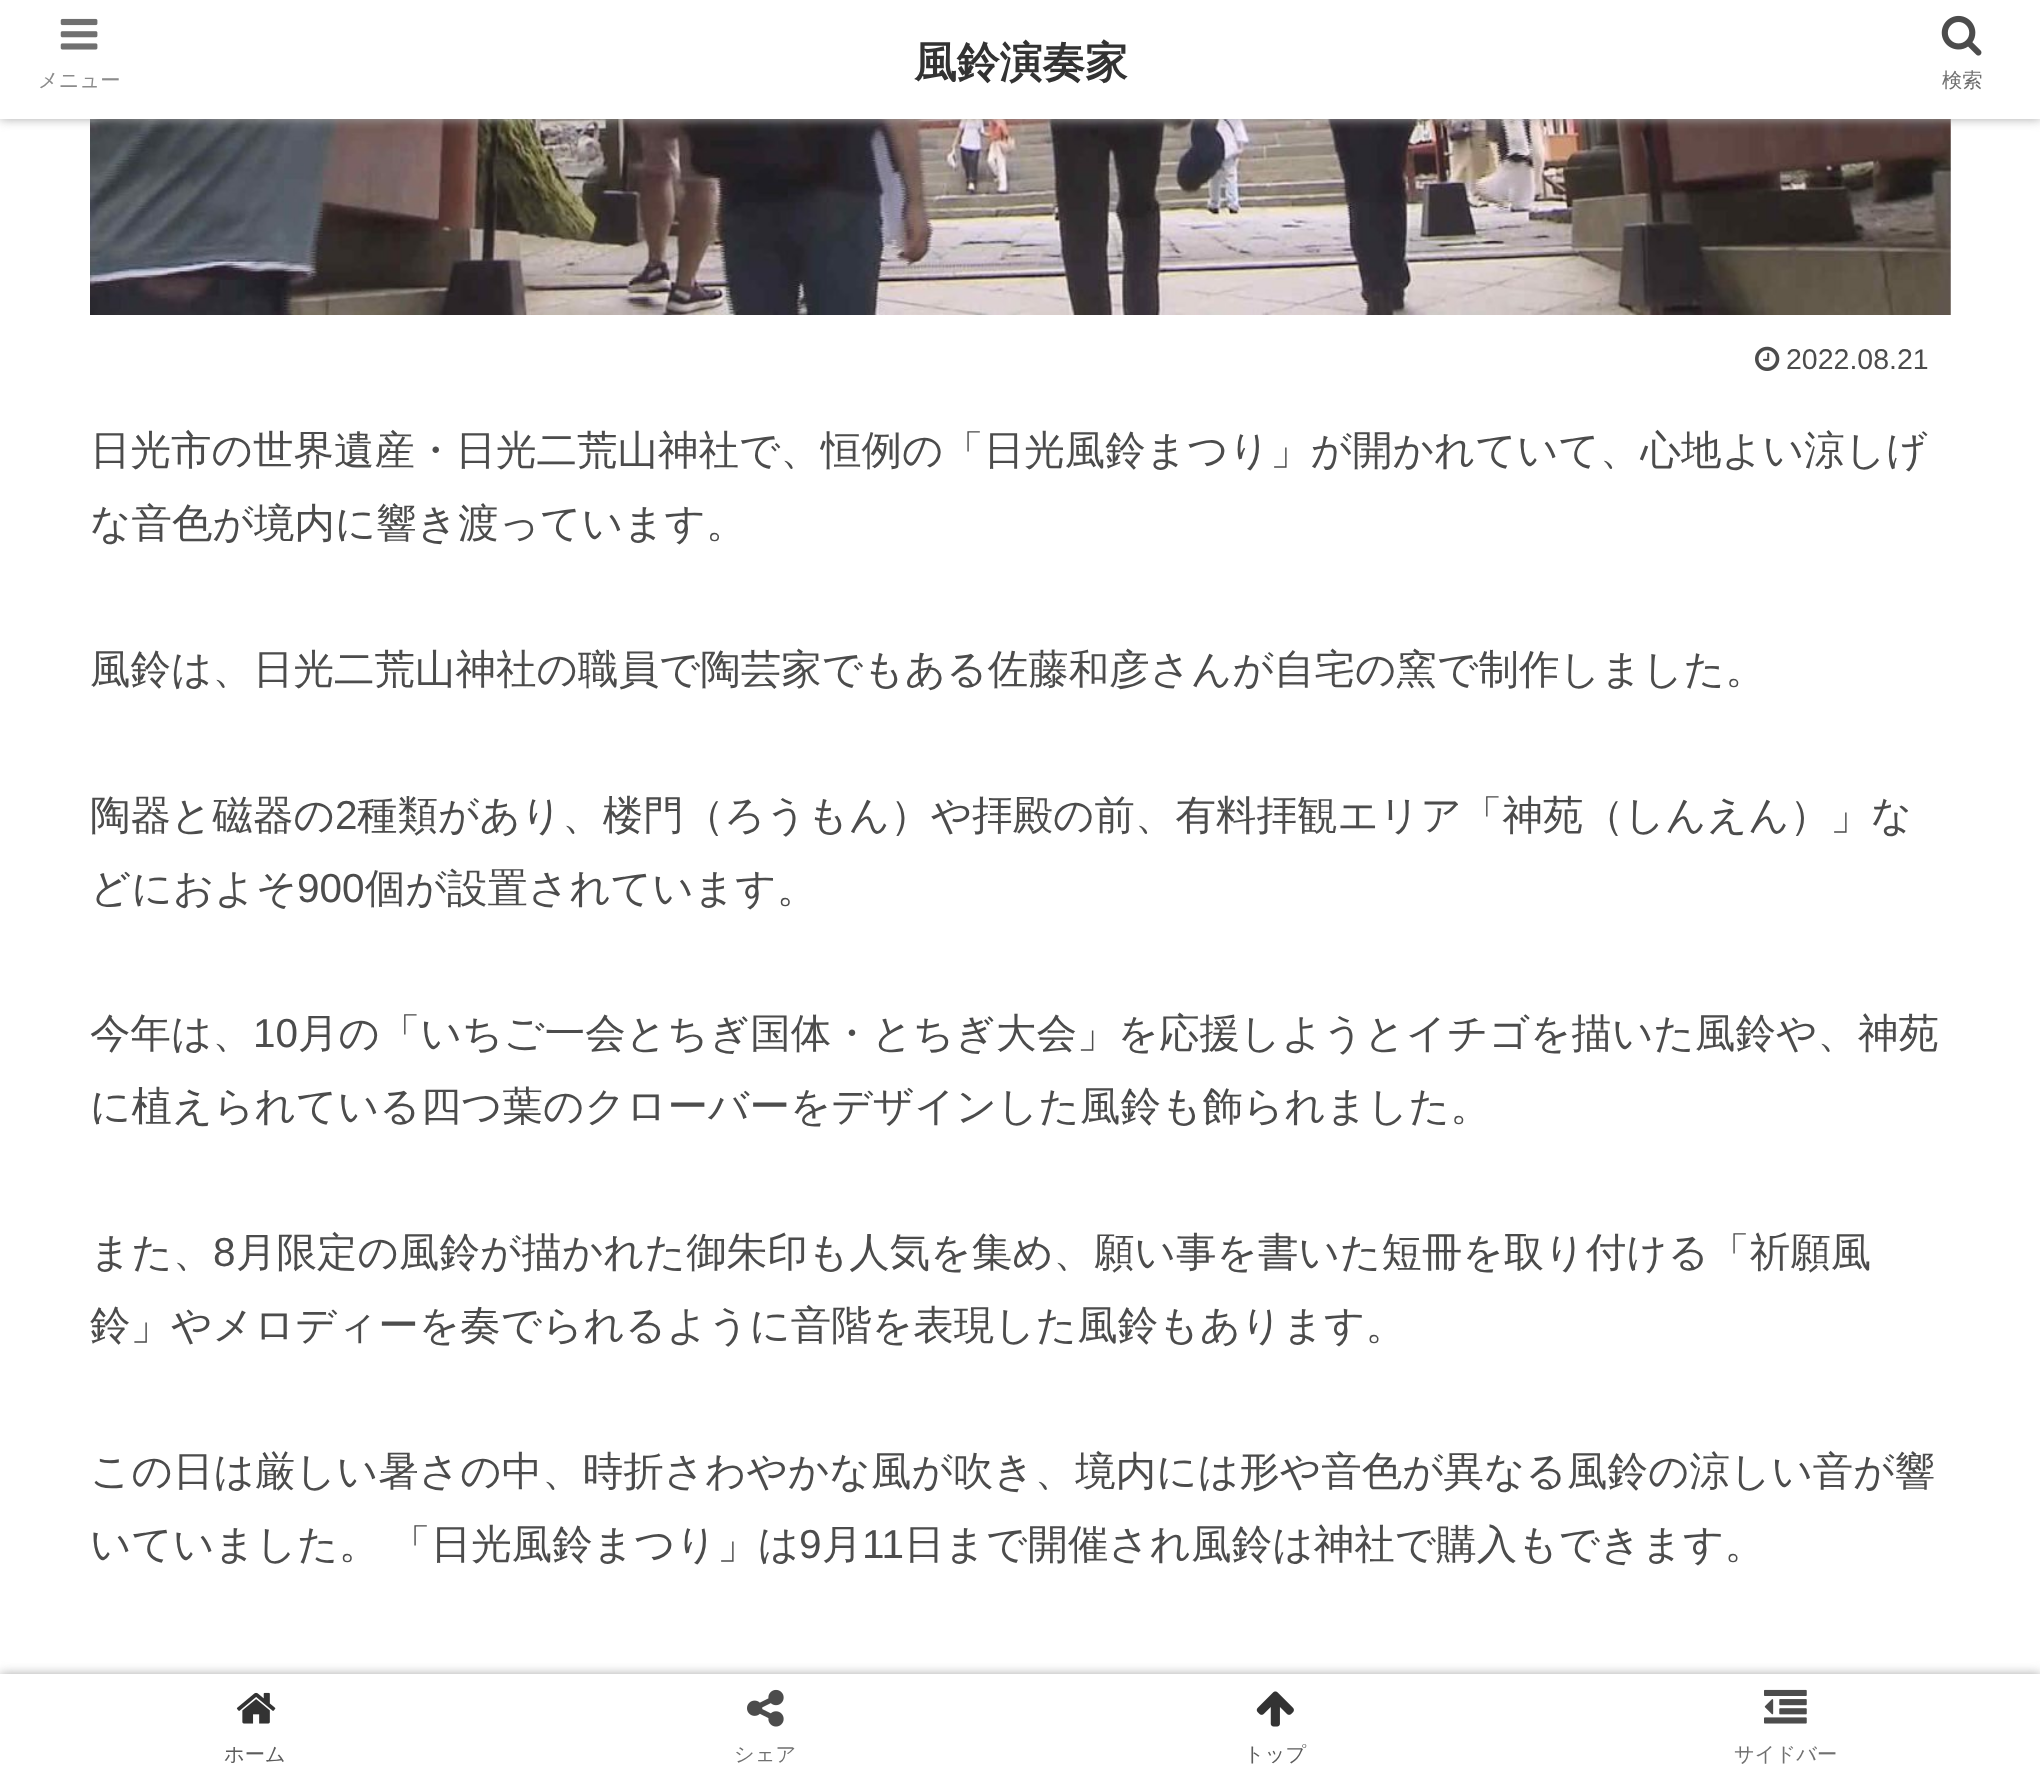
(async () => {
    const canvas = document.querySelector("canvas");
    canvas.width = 2040;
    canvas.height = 1785;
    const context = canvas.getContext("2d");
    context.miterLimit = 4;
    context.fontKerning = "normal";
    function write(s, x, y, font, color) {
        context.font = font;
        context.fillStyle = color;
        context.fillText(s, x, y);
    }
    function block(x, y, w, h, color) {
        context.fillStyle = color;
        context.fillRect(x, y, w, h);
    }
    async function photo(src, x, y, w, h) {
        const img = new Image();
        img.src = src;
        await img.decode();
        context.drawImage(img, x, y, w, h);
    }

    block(0, 0, 2040, 1785, "rgb(255, 255, 255)");
    await photo("media/3.png", 90, 119, 1861, 196);
    context.fillStyle = "rgb(169, 169, 169)";
    context.filter = "blur(5.5px)";
    context.beginPath();
    context.rect(0, 0, 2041, 119);
    context.fill();
    context.filter = "none";
    block(0, 0, 2040, 119, "rgb(255, 255, 255)");
    await photo("media/1.png", 60, 18, 38, 32);
    write("メニュー", 38, 87, "500 20.25px WenQuanYi Zen Hei", "rgb(140, 140, 140)");
    write("風鈴演奏家", 914, 77, "bold 42.75px WenQuanYi Zen Hei", "rgb(51, 51, 51)");
    await photo("media/2.png", 1941, 15, 41, 41);
    write("検索", 1942, 87, "500 20.25px WenQuanYi Zen Hei", "rgb(112, 112, 112)");
    await photo("media/4.png", 1755, 346, 25, 25);
    write("2022.08.21", 1786, 369, "28.5px Liberation Sans", "rgb(76, 76, 76)");
    write("日光市の世界遺産・日光二荒山神社で、恒例の「日光風鈴まつり」が開かれていて、心地よい涼しげ", 90, 464, "500 40.5px WenQuanYi Zen Hei", "rgb(76, 76, 76)");
    write("な音色が境内に響き渡っています。", 90, 537, "500 40.5px WenQuanYi Zen Hei", "rgb(76, 76, 76)");
    write("風鈴は、日光二荒山神社の職員で陶芸家でもある佐藤和彦さんが自宅の窯で制作しました。", 90, 683, "500 40.5px WenQuanYi Zen Hei", "rgb(76, 76, 76)");
    write("陶器と磁器の", 90, 829, "500 40.5px WenQuanYi Zen Hei", "rgb(76, 76, 76)");
    write("2", 335, 829, "40.5px Liberation Sans", "rgb(76, 76, 76)");
    write("種類があり、楼門（ろうもん）や拝殿の前、有料拝観エリア「神苑（しんえん）」な", 357, 829, "500 40.5px WenQuanYi Zen Hei", "rgb(76, 76, 76)");
    write("どにおよそ", 90, 902, "500 40.5px WenQuanYi Zen Hei", "rgb(76, 76, 76)");
    write("900", 297, 902, "40.5px Liberation Sans", "rgb(76, 76, 76)");
    write("個が設置されています。", 365, 902, "500 40.5px WenQuanYi Zen Hei", "rgb(76, 76, 76)");
    write("今年は、", 90, 1047, "500 40.5px WenQuanYi Zen Hei", "rgb(76, 76, 76)");
    write("10", 253, 1047, "40.5px Liberation Sans", "rgb(76, 76, 76)");
    write("月の「いちご一会とちぎ国体・とちぎ大会」を応援しようとイチゴを描いた風鈴や、神苑", 298, 1047, "500 40.5px WenQuanYi Zen Hei", "rgb(76, 76, 76)");
    write("に植えられている四つ葉のクローバーをデザインした風鈴も飾られました。", 90, 1120, "500 40.5px WenQuanYi Zen Hei", "rgb(76, 76, 76)");
    write("また、", 90, 1266, "500 40.5px WenQuanYi Zen Hei", "rgb(76, 76, 76)");
    write("8", 213, 1266, "40.5px Liberation Sans", "rgb(76, 76, 76)");
    write("月限定の風鈴が描かれた御朱印も人気を集め、願い事を書いた短冊を取り付ける「祈願風", 236, 1266, "500 40.5px WenQuanYi Zen Hei", "rgb(76, 76, 76)");
    write("鈴」やメロディーを奏でられるように音階を表現した風鈴もあります。", 90, 1339, "500 40.5px WenQuanYi Zen Hei", "rgb(76, 76, 76)");
    write("この日は厳しい暑さの中、時折さわやかな風が吹き、境内には形や音色が異なる風鈴の涼しい音が響", 90, 1485, "500 40.5px WenQuanYi Zen Hei", "rgb(76, 76, 76)");
    context.wordSpacing = "-1px";
    write("いていました。 「日光風鈴まつり」は", 90, 1558, "500 40.5px WenQuanYi Zen Hei", "rgb(76, 76, 76)");
    context.wordSpacing = "0px";
    write("9", 799, 1558, "40.5px Liberation Sans", "rgb(76, 76, 76)");
    write("月", 822, 1558, "500 40.5px WenQuanYi Zen Hei", "rgb(76, 76, 76)");
    write("11", 862, 1558, "40.5px Liberation Sans", "rgb(76, 76, 76)");
    write("日まで開催され風鈴は神社で購入もできます。", 904, 1558, "500 40.5px WenQuanYi Zen Hei", "rgb(76, 76, 76)");
    context.fillStyle = "rgb(169, 169, 169)";
    context.filter = "blur(5.5px)";
    context.beginPath();
    context.rect(0, 1674, 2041, 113);
    context.fill();
    context.filter = "none";
    block(0, 1674, 2040, 111, "rgb(255, 255, 255)");
    await photo("media/5.png", 236, 1692, 40, 32);
    write("ホーム", 224, 1761, "500 20.25px WenQuanYi Zen Hei", "rgb(92, 92, 92)");
    await photo("media/6.png", 747, 1689, 37, 38);
    write("シェア", 734, 1761, "500 20.25px WenQuanYi Zen Hei", "rgb(112, 112, 112)");
    await photo("media/7.png", 1256, 1691, 38, 36);
    write("トップ", 1244, 1761, "500 20.25px WenQuanYi Zen Hei", "rgb(92, 92, 92)");
    await photo("media/8.png", 1764, 1689, 43, 35);
    write("サイドバー", 1734, 1761, "500 20.25px WenQuanYi Zen Hei", "rgb(112, 112, 112)");
})();
